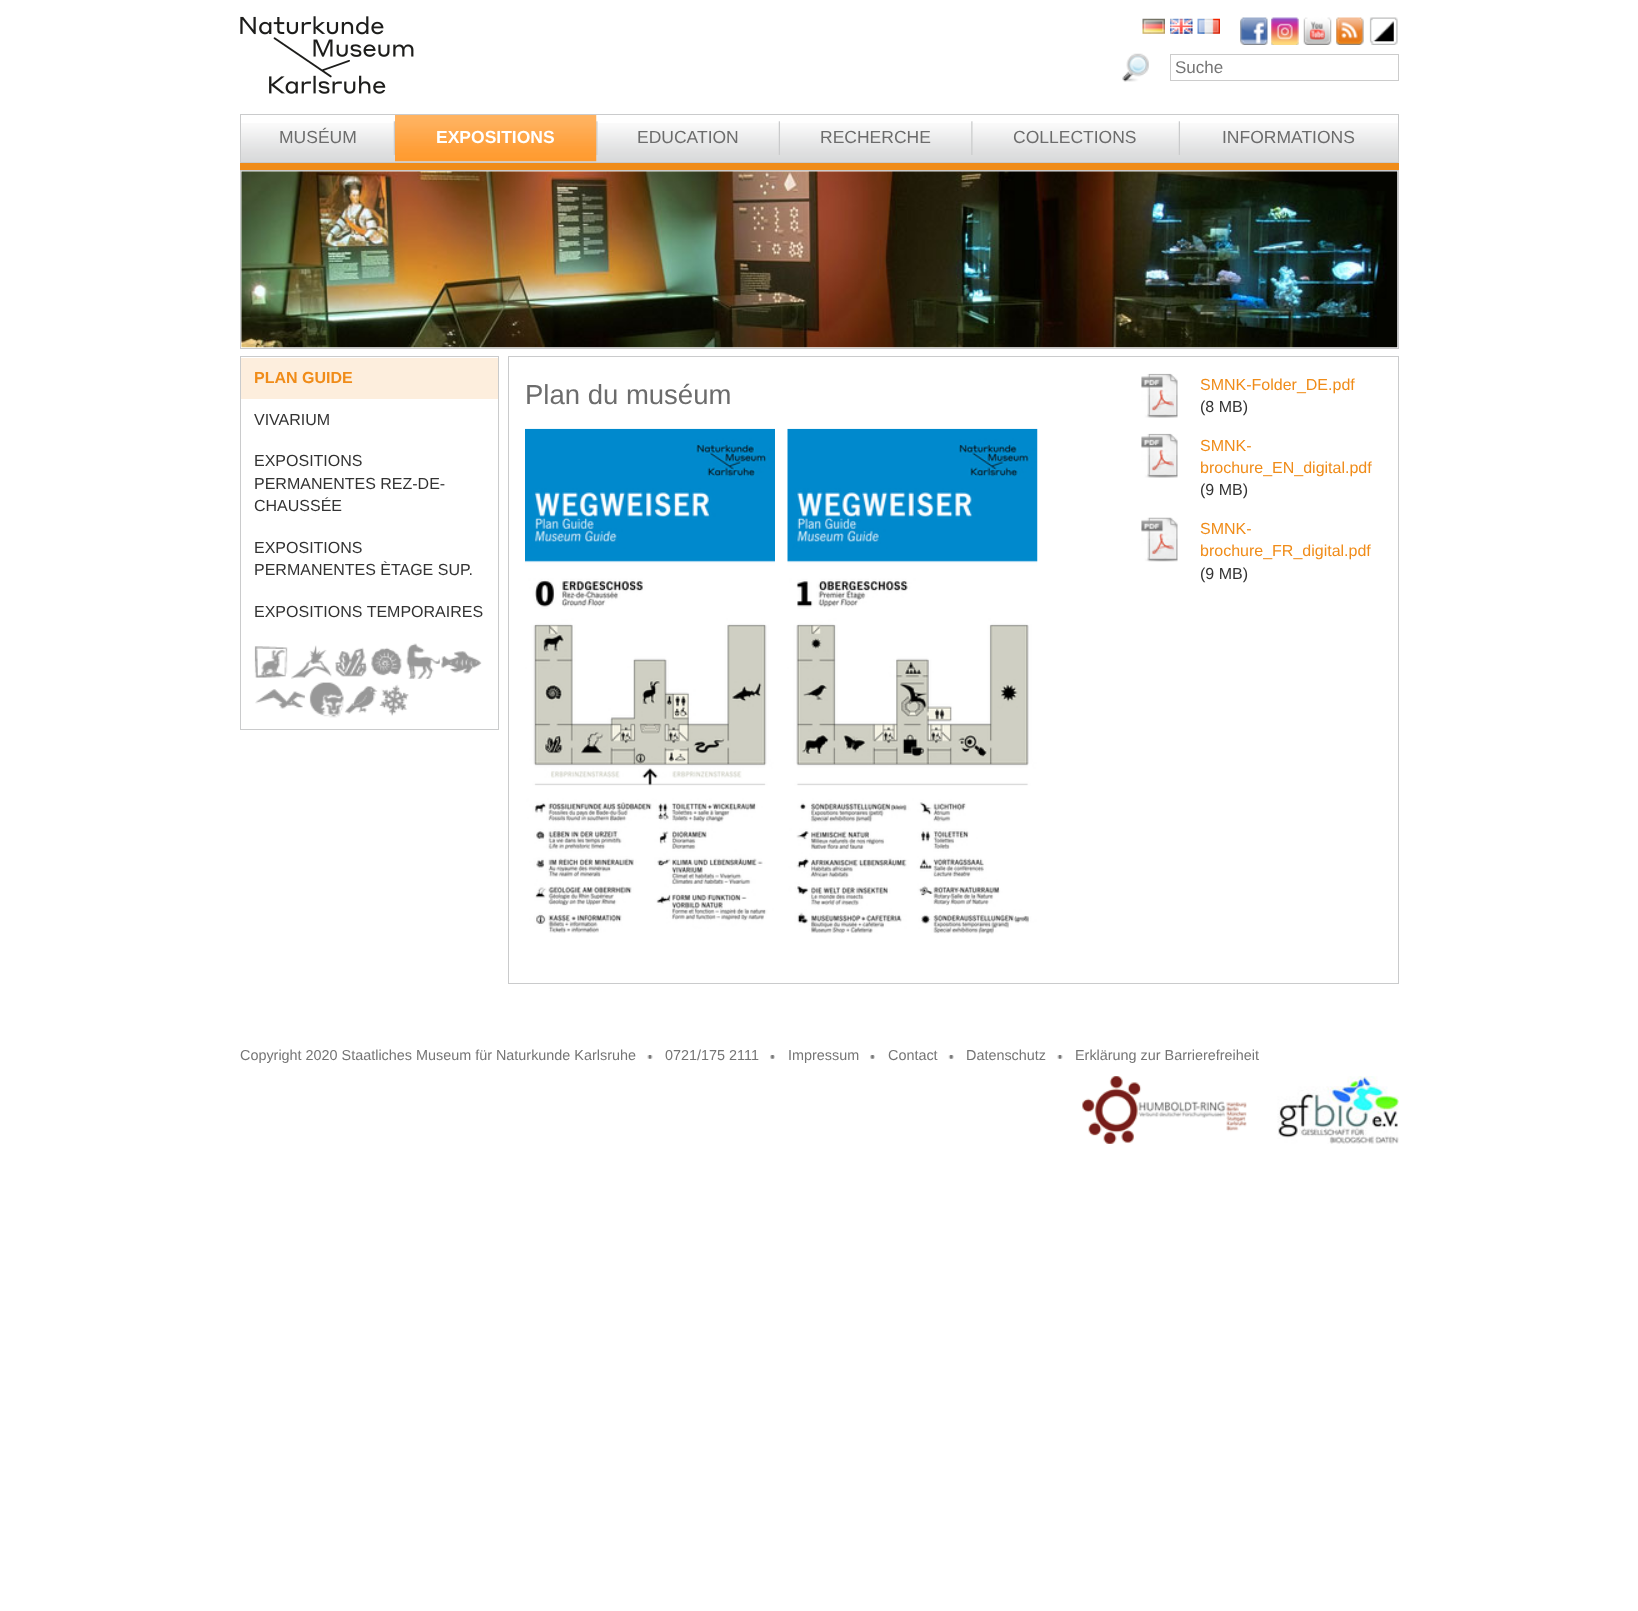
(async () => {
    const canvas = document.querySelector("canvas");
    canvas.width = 1638;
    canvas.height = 1611;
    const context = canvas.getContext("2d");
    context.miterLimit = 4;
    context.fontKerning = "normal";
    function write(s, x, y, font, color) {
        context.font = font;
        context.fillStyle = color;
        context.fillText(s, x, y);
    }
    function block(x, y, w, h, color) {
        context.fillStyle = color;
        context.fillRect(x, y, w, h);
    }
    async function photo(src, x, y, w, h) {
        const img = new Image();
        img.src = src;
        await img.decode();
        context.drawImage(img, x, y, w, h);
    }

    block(0, 0, 1638, 1611, "rgb(255, 255, 255)");
    block(240, 163, 1159, 7, "rgb(240, 140, 25)");
    await photo("media/1.png", 240, 16, 174, 78);
    await photo("media/2.png", 1142, 18, 23, 16);
    await photo("media/3.png", 1170, 18, 23, 16);
    await photo("media/4.png", 1197, 18, 23, 16);
    await photo("media/5.png", 1240, 17, 28, 28);
    await photo("media/6.png", 1271, 17, 28, 28);
    await photo("media/7.png", 1303, 17, 29, 28);
    await photo("media/8.png", 1336, 17, 28, 28);
    await photo("media/9.png", 1369, 17, 29, 28);
    await photo("media/10.png", 1122, 53, 27, 29);
    context.strokeStyle = "rgb(204, 204, 204)";
    context.strokeRect(1170.5, 54.5, 228, 26);
    write("Suche", 1175, 73, "17px Liberation Sans", "rgb(117, 117, 117)");
    await photo("media/11.png", 241, 123, 1157, 39);
    context.strokeStyle = "rgb(202, 203, 204)";
    context.strokeRect(240.5, 114.5, 1158, 48);
    write("MUSÉUM", 279, 143, "17.5px Liberation Sans", "rgb(108, 108, 108)");
    await photo("media/12.png", 393, 121, 2, 34);
    await photo("media/14.png", 596, 121, 2, 34);
    await photo("media/13.png", 395, 115, 202, 47);
    write("EXPOSITIONS", 436, 143, "bold 17.5px Liberation Sans", "rgb(255, 255, 255)");
    write("EDUCATION", 637, 143, "17.5px Liberation Sans", "rgb(108, 108, 108)");
    await photo("media/12.png", 778, 121, 2, 34);
    write("RECHERCHE", 820, 143, "17.5px Liberation Sans", "rgb(108, 108, 108)");
    await photo("media/14.png", 971, 121, 2, 34);
    write("COLLECTIONS", 1013, 143, "17.5px Liberation Sans", "rgb(108, 108, 108)");
    await photo("media/12.png", 1178, 121, 2, 34);
    write("INFORMATIONS", 1222, 143, "17.5px Liberation Sans", "rgb(108, 108, 108)");
    context.strokeRect(240.5, 170.5, 1158, 178);
    await photo("media/15.png", 241, 171, 1157, 177);
    context.strokeRect(240.5, 356.5, 258, 373);
    block(241, 358, 257, 41, "rgb(253, 238, 221)");
    write("PLAN GUIDE", 254, 383, "bold 16px Liberation Sans", "rgb(240, 140, 25)");
    write("VIVARIUM", 254, 425, "16px Liberation Sans", "rgb(51, 51, 51)");
    write("EXPOSITIONS", 254, 466, "16px Liberation Sans", "rgb(51, 51, 51)");
    write("PERMANENTES REZ-DE-", 254, 489, "16px Liberation Sans", "rgb(51, 51, 51)");
    write("CHAUSSÉE", 254, 511, "16px Liberation Sans", "rgb(51, 51, 51)");
    write("EXPOSITIONS", 254, 553, "16px Liberation Sans", "rgb(51, 51, 51)");
    write("PERMANENTES ÈTAGE SUP.", 254, 575, "16px Liberation Sans", "rgb(51, 51, 51)");
    write("EXPOSITIONS TEMPORAIRES", 254, 617, "16px Liberation Sans", "rgb(51, 51, 51)");
    await photo("media/16.png", 254, 646, 34, 32);
    await photo("media/17.png", 291, 645, 41, 34);
    await photo("media/18.png", 335, 647, 33, 30);
    await photo("media/19.png", 371, 647, 31, 29);
    await photo("media/20.png", 406, 643, 35, 36);
    await photo("media/21.png", 440, 651, 42, 23);
    await photo("media/22.png", 255, 689, 50, 20);
    await photo("media/23.png", 309, 682, 36, 36);
    await photo("media/24.png", 343, 686, 35, 28);
    await photo("media/25.png", 379, 684, 30, 32);
    context.strokeRect(508.5, 356.5, 890, 627);
    write("Plan du muséum", 525, 404, "27.5px Liberation Sans", "rgb(108, 108, 108)");
    await photo("media/26.png", 525, 428, 250, 505);
    await photo("media/27.png", 787, 428, 251, 506);
    await photo("media/28.png", 1141, 373, 37, 45);
    write("SMNK-Folder_DE.pdf", 1200, 390, "16px Liberation Sans", "rgb(240, 140, 25)");
    write("(8 MB)", 1200, 412, "16px Liberation Sans", "rgb(51, 51, 51)");
    await photo("media/28.png", 1141, 433, 37, 45);
    write("SMNK-", 1200, 451, "16px Liberation Sans", "rgb(240, 140, 25)");
    write("brochure_EN_digital.pdf", 1200, 473, "16px Liberation Sans", "rgb(240, 140, 25)");
    write("(9 MB)", 1200, 495, "16px Liberation Sans", "rgb(51, 51, 51)");
    await photo("media/29.png", 1141, 517, 37, 45);
    write("SMNK-", 1200, 534, "16px Liberation Sans", "rgb(240, 140, 25)");
    write("brochure_FR_digital.pdf", 1200, 556, "16px Liberation Sans", "rgb(240, 140, 25)");
    write("(9 MB)", 1200, 579, "16px Liberation Sans", "rgb(51, 51, 51)");
    write("Copyright 2020 Staatliches Museum für Naturkunde Karlsruhe", 240, 1060, "14.4px Liberation Sans", "rgb(117, 117, 117)");
    await photo("media/30.png", 647, 1055, 6, 4);
    write("0721/175 2111", 665, 1060, "14.4px Liberation Sans", "rgb(117, 117, 117)");
    await photo("media/31.png", 770, 1055, 5, 4);
    write("Impressum", 788, 1060, "14.4px Liberation Sans", "rgb(117, 117, 117)");
    await photo("media/31.png", 870, 1055, 5, 4);
    write("Contact", 888, 1060, "14.4px Liberation Sans", "rgb(117, 117, 117)");
    await photo("media/32.png", 948, 1055, 6, 4);
    write("Datenschutz", 966, 1060, "14.4px Liberation Sans", "rgb(117, 117, 117)");
    await photo("media/30.png", 1057, 1055, 6, 4);
    write("Erklärung zur Barrierefreiheit", 1075, 1060, "14.4px Liberation Sans", "rgb(117, 117, 117)");
    await photo("media/33.png", 1082, 1076, 165, 68);
    await photo("media/34.png", 1277, 1076, 122, 68);
})();
